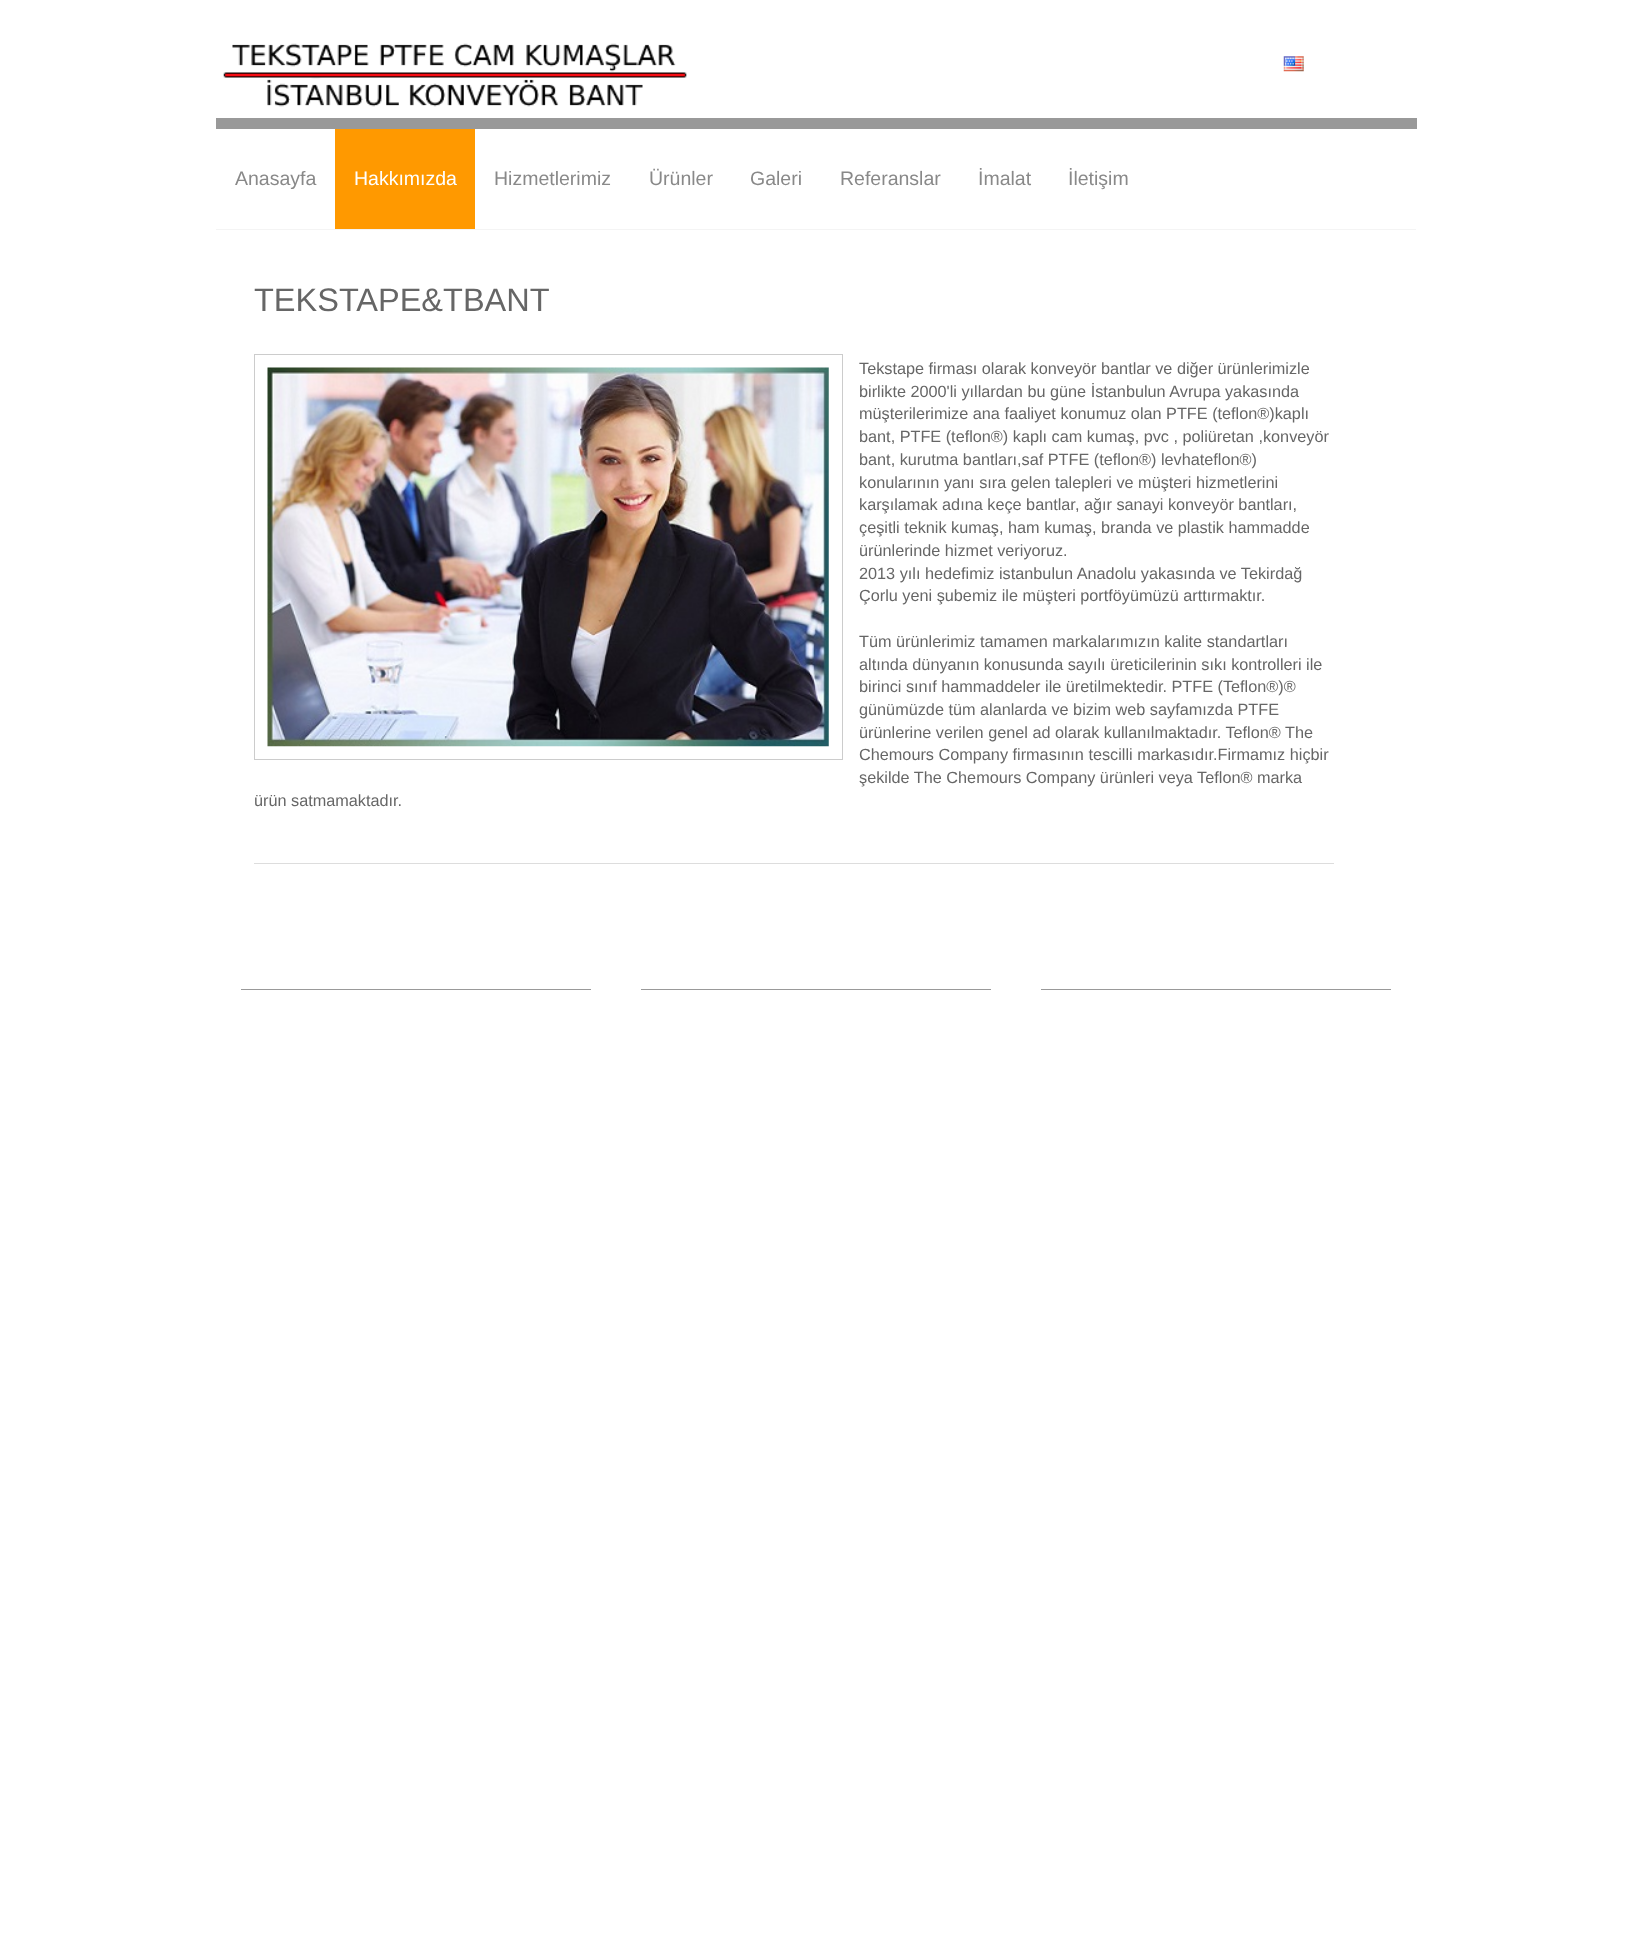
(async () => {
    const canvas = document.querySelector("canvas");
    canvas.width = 1632;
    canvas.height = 1941;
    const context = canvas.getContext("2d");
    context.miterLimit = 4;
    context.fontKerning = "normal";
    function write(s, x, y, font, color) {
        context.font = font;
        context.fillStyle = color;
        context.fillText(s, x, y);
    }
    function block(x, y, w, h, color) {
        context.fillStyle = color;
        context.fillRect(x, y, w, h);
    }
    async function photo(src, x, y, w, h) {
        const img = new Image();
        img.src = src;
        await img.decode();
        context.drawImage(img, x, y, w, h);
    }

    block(0, 0, 1632, 1941, "rgb(255, 255, 255)");
    await photo("media/1.png", 223, 43, 464, 64);
    await photo("media/2.png", 1283, 56, 21, 16);
    block(216, 118, 1201, 11, "rgb(153, 153, 153)");
    write("Anasayfa", 235, 185, "19.5px Liberation Sans", "rgb(137, 137, 137)");
    block(335, 129, 140, 100, "rgb(255, 153, 0)");
    write("Hakkımızda", 354, 185, "19.5px Liberation Sans", "rgb(255, 255, 255)");
    write("Hizmetlerimiz", 494, 185, "19.5px Liberation Sans", "rgb(137, 137, 137)");
    write("Ürünler", 649, 185, "19.5px Liberation Sans", "rgb(137, 137, 137)");
    write("Galeri", 750, 185, "19.5px Liberation Sans", "rgb(137, 137, 137)");
    write("Referanslar", 840, 185, "19.5px Liberation Sans", "rgb(137, 137, 137)");
    write("İmalat", 978, 185, "19.5px Liberation Sans", "rgb(137, 137, 137)");
    write("İletişim", 1068, 185, "19.5px Liberation Sans", "rgb(137, 137, 137)");
    block(216, 229, 1200, 1, "rgb(244, 244, 244)");
    write("TEKSTAPE&TBANT", 254, 311, "32.5px Liberation Sans", "rgb(102, 102, 102)");
    block(254, 863, 1080, 1, "rgb(221, 221, 221)");
    context.strokeStyle = "rgb(204, 204, 204)";
    context.strokeRect(254.5, 354.5, 588, 405);
    await photo("media/3.png", 267, 367, 562, 380);
    write("Tekstape firması olarak konveyör bantlar ve diğer ürünlerimizle", 859, 374, "16.25px Liberation Sans", "rgb(102, 102, 102)");
    write("birlikte 2000'li yıllardan bu güne İstanbulun Avrupa yakasında", 859, 397, "16.25px Liberation Sans", "rgb(102, 102, 102)");
    write("müşterilerimize ana faaliyet konumuz olan PTFE (teflon®)kaplı", 859, 419, "16.25px Liberation Sans", "rgb(102, 102, 102)");
    write("bant, PTFE (teflon®) kaplı cam kumaş, pvc , poliüretan ,konveyör", 859, 442, "16.25px Liberation Sans", "rgb(102, 102, 102)");
    write("bant, kurutma bantları,saf PTFE (teflon®) levhateflon®)", 859, 465, "16.25px Liberation Sans", "rgb(102, 102, 102)");
    write("konularının yanı sıra gelen talepleri ve müşteri hizmetlerini", 859, 488, "16.25px Liberation Sans", "rgb(102, 102, 102)");
    write("karşılamak adına keçe bantlar, ağır sanayi konveyör bantları,", 859, 510, "16.25px Liberation Sans", "rgb(102, 102, 102)");
    write("çeşitli teknik kumaş, ham kumaş, branda ve plastik hammadde", 859, 533, "16.25px Liberation Sans", "rgb(102, 102, 102)");
    write("ürünlerinde hizmet veriyoruz.", 859, 556, "16.25px Liberation Sans", "rgb(102, 102, 102)");
    write("2013 yılı hedefimiz istanbulun Anadolu yakasında ve Tekirdağ", 859, 579, "16.25px Liberation Sans", "rgb(102, 102, 102)");
    write("Çorlu yeni şubemiz ile müşteri portföyümüzü arttırmaktır.", 859, 601, "16.25px Liberation Sans", "rgb(102, 102, 102)");
    write("Tüm ürünlerimiz tamamen markalarımızın kalite standartları", 859, 647, "16.25px Liberation Sans", "rgb(102, 102, 102)");
    write("altında dünyanın konusunda sayılı üreticilerinin sıkı kontrolleri ile", 859, 670, "16.25px Liberation Sans", "rgb(102, 102, 102)");
    write("birinci sınıf hammaddeler ile üretilmektedir. PTFE (Teflon®)®", 859, 692, "16.25px Liberation Sans", "rgb(102, 102, 102)");
    write("günümüzde tüm alanlarda ve bizim web sayfamızda PTFE", 859, 715, "16.25px Liberation Sans", "rgb(102, 102, 102)");
    write("ürünlerine verilen genel ad olarak kullanılmaktadır. Teflon® The", 859, 738, "16.25px Liberation Sans", "rgb(102, 102, 102)");
    write("Chemours Company firmasının tescilli markasıdır.Firmamız hiçbir", 859, 760, "16.25px Liberation Sans", "rgb(102, 102, 102)");
    write("şekilde The Chemours Company ürünleri veya Teflon® marka", 859, 783, "16.25px Liberation Sans", "rgb(102, 102, 102)");
    write("ürün satmamaktadır.", 254, 806, "16.25px Liberation Sans", "rgb(102, 102, 102)");
    block(241, 989, 350, 1, "rgb(153, 153, 153)");
    block(641, 989, 350, 1, "rgb(153, 153, 153)");
    block(1041, 989, 350, 1, "rgb(153, 153, 153)");
})();
